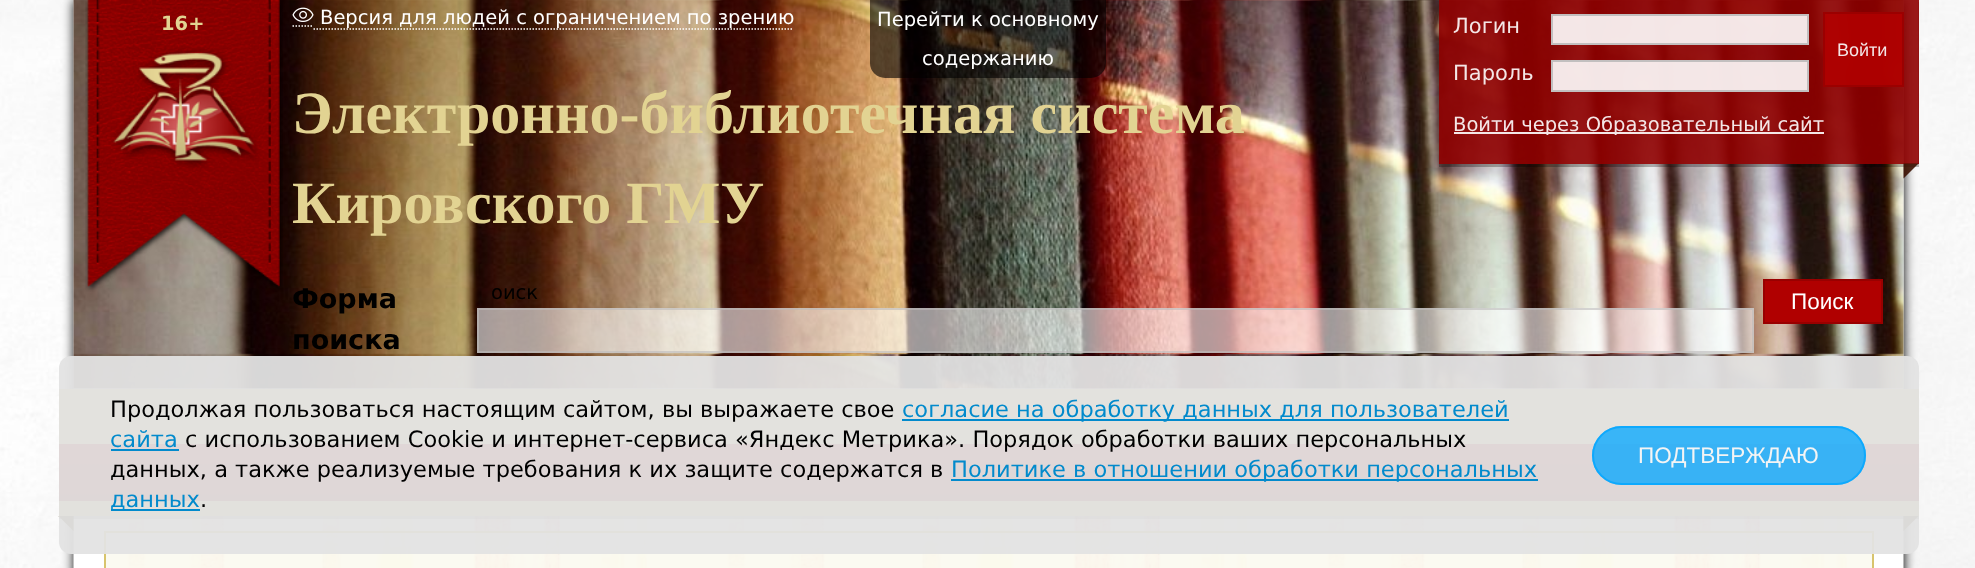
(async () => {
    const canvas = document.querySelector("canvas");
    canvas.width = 1975;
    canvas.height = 568;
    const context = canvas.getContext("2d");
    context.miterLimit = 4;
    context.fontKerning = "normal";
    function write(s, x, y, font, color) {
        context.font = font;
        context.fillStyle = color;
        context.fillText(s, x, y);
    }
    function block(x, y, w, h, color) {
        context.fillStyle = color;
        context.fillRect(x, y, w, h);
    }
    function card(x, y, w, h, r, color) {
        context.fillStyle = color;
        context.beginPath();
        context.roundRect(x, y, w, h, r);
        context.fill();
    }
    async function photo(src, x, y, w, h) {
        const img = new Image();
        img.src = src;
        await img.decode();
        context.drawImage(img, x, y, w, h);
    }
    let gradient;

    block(0, 0, 1975, 568, "rgb(255, 255, 255)");
    await photo("media/1.png", 0, 0, 1975, 568);
    context.fillStyle = "rgb(0, 0, 0)";
    context.filter = "blur(6px)";
    context.beginPath();
    context.rect(74, 0, 1830, 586);
    context.fill();
    context.filter = "none";
    await photo("media/2.png", 73, 0, 1831, 568);
    await photo("media/3.png", 73, 0, 1831, 389);
    await photo("media/4.png", 85, 0, 198, 292);
    write("16+", 161, 30, "bold 19.5px DejaVu Sans", "rgb(226, 211, 146)");
    await photo("media/5.png", 292, 7, 22, 15);
    context.beginPath();
    context.moveTo(313.5, 29);
    context.lineTo(793.5, 29);
    context.strokeStyle = "rgb(255, 255, 255)";
    context.lineWidth = 1.5;
    context.setLineDash([1.5, 1.5]);
    context.stroke();
    write("Версия для людей с ограничением по зрению", 320, 24, "19.5px DejaVu Sans", "rgb(255, 255, 255)");
    context.beginPath();
    context.moveTo(292.5, 26);
    context.lineTo(313.5, 26);
    context.stroke();
    write("Электронно-библиотечная система", 292, 133, "bold 60px Liberation Serif", "rgb(226, 211, 146)");
    write("Кировского ГМУ", 292, 223, "bold 60px Liberation Serif", "rgb(226, 211, 146)");
    write("Форма", 292, 308, "bold 27px DejaVu Sans", "rgb(0, 0, 0)");
    write("поиска", 292, 349, "bold 27px DejaVu Sans", "rgb(0, 0, 0)");
    write("оиск", 491, 299, "19.5px DejaVu Sans", "rgb(0, 0, 0)");
    block(477, 308, 1277, 45, "rgba(255, 255, 255, 0.6)");
    context.strokeStyle = "rgba(188, 187, 187, 0.6)";
    context.lineWidth = 2;
    context.setLineDash([]);
    context.strokeRect(478, 309, 1275, 43);
    context.fillStyle = "rgb(176, 0, 0)";
    context.beginPath();
    context.rect(1764, 280, 118, 43);
    context.fill();
    context.strokeStyle = "rgb(153, 0, 0)";
    context.stroke();
    write("Поиск", 1791, 309, "22.5px Liberation Sans", "rgb(255, 255, 255)");
    context.fillStyle = "rgba(0, 0, 0, 0.27)";
    context.beginPath();
    context.moveTo(1439, 164);
    context.lineTo(1439, 167);
    context.lineTo(1919, 167);
    context.lineTo(1919, 2);
    context.lineTo(1918, 2);
    context.lineTo(1918, 164);
    context.closePath();
    context.fill();
    block(1439, 0, 480, 164, "rgba(143, 0, 0, 0.9)");
    write("Логин", 1453, 33, "21px DejaVu Sans", "rgb(244, 230, 230)");
    context.fillStyle = "rgba(255, 255, 255, 0.9)";
    context.beginPath();
    context.rect(1552, 15, 256, 29);
    context.fill();
    context.strokeStyle = "rgb(194, 191, 191)";
    context.stroke();
    context.fillStyle = "rgba(176, 0, 0, 0.9)";
    context.beginPath();
    context.rect(1824, 13, 79, 73);
    context.fill();
    context.strokeStyle = "rgb(155, 0, 0)";
    context.stroke();
    write("Войти", 1837, 56, "18px Liberation Sans", "rgb(244, 230, 230)");
    write("Пароль", 1453, 80, "21px DejaVu Sans", "rgb(244, 230, 230)");
    context.fillStyle = "rgba(255, 255, 255, 0.9)";
    context.beginPath();
    context.rect(1552, 61, 256, 30);
    context.fill();
    context.strokeStyle = "rgb(194, 191, 191)";
    context.stroke();
    block(1454, 132, 370, 2, "rgba(255, 255, 255, 0.9)");
    write("Войти через Образовательный сайт", 1453, 131, "19.5px DejaVu Sans", "rgb(244, 230, 230)");
    context.fillStyle = "rgba(60, 17, 1, 0.9)";
    context.beginPath();
    context.moveTo(1903.5, 178.5);
    context.lineTo(1903.5, 163.5);
    context.lineTo(1918.5, 163.5);
    context.closePath();
    context.fill();
    context.fillStyle = "rgba(0, 0, 0, 0.3)";
    context.beginPath();
    context.moveTo(59, 516);
    context.lineTo(59, 519);
    context.lineTo(1919, 519);
    context.lineTo(1919, 392);
    context.lineTo(1918, 392);
    context.lineTo(1918, 516);
    context.closePath();
    context.fill();
    gradient = context.createLinearGradient(989, 388, 989, 516);
    gradient.addColorStop(0, "rgb(226, 211, 146)");
    gradient.addColorStop(1, "rgb(216, 197, 110)");
    context.fillStyle = gradient;
    context.fillRect(59, 389, 1860, 127);
    gradient = context.createLinearGradient(245, 444, 245, 501);
    gradient.addColorStop(0, "rgb(176, 0, 0)");
    gradient.addColorStop(1, "rgb(143, 0, 0)");
    context.fillStyle = gradient;
    context.fillRect(59, 444, 372, 57);
    gradient = context.createLinearGradient(617, 444, 617, 501);
    gradient.addColorStop(0, "rgb(176, 0, 0)");
    gradient.addColorStop(1, "rgb(143, 0, 0)");
    context.fillStyle = gradient;
    context.fillRect(431, 444, 372, 57);
    gradient = context.createLinearGradient(989, 444, 989, 501);
    gradient.addColorStop(0, "rgb(176, 0, 0)");
    gradient.addColorStop(1, "rgb(143, 0, 0)");
    context.fillStyle = gradient;
    context.fillRect(803, 444, 372, 57);
    gradient = context.createLinearGradient(1361, 444, 1361, 501);
    gradient.addColorStop(0, "rgb(176, 0, 0)");
    gradient.addColorStop(1, "rgb(143, 0, 0)");
    context.fillStyle = gradient;
    context.fillRect(1175, 444, 372, 57);
    gradient = context.createLinearGradient(1733, 444, 1733, 501);
    gradient.addColorStop(0, "rgb(176, 0, 0)");
    gradient.addColorStop(1, "rgb(143, 0, 0)");
    context.fillStyle = gradient;
    context.fillRect(1547, 444, 372, 57);
    context.fillStyle = "rgb(81, 70, 21)";
    context.beginPath();
    context.moveTo(73.5, 516);
    context.lineTo(73.5, 531);
    context.lineTo(58.5, 516);
    context.closePath();
    context.fill();
    context.beginPath();
    context.moveTo(1903.5, 531);
    context.lineTo(1903.5, 516);
    context.lineTo(1918.5, 516);
    context.closePath();
    context.fill();
    block(104, 531, 1770, 37, "rgba(251, 249, 239, 0.9)");
    context.strokeStyle = "rgba(212, 190, 94, 0.9)";
    context.strokeRect(105, 532, 1768, 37);
    card(59, 356, 1860, 198, 12, "rgba(227, 227, 227, 0.95)");
    write("Продолжая пользоваться настоящим сайтом, вы выражаете свое", 110, 417, "22.5px DejaVu Sans", "rgb(0, 0, 0)");
    block(902, 419, 607, 2, "rgb(2, 138, 204)");
    write("согласие на обработку данных для пользователей", 902, 417, "22.5px DejaVu Sans", "rgb(2, 138, 204)");
    write("сайта", 110, 447, "22.5px DejaVu Sans", "rgb(2, 138, 204)");
    block(111, 449, 68, 2, "rgb(2, 138, 204)");
    write("с использованием Cookie и интернет-сервиса «Яндекс Метрика». Порядок обработки ваших персональных", 185, 447, "22.5px DejaVu Sans", "rgb(0, 0, 0)");
    write("данных, а также реализуемые требования к их защите содержатся в", 110, 477, "22.5px DejaVu Sans", "rgb(0, 0, 0)");
    block(951, 479, 587, 2, "rgb(2, 138, 204)");
    write("Политике в отношении обработки персональных", 951, 477, "22.5px DejaVu Sans", "rgb(2, 138, 204)");
    block(111, 509, 89, 2, "rgb(2, 138, 204)");
    write("данных", 110, 507, "22.5px DejaVu Sans", "rgb(2, 138, 204)");
    write(".", 200, 507, "22.5px DejaVu Sans", "rgb(0, 0, 0)");
    card(1592, 426, 274, 59, 29.5, "rgba(0, 165, 255, 0.75)");
    context.beginPath();
    context.roundRect(1593, 427, 272, 57, 28.5);
    context.strokeStyle = "rgba(0, 165, 255, 0.75)";
    context.stroke();
    write("ПОДТВЕРЖДАЮ", 1638, 463, "22.5px Liberation Sans", "rgb(244, 244, 244)");
    context.fillStyle = "rgba(0, 0, 0, 0.6)";
    context.beginPath();
    context.roundRect(870, 0, 236, 78, [0, 0, 15, 15]);
    context.fill();
    write("Перейти к основному", 877, 26, "19.5px DejaVu Sans", "rgb(255, 255, 255)");
    write("содержанию", 922, 65, "19.5px DejaVu Sans", "rgb(255, 255, 255)");
})();
